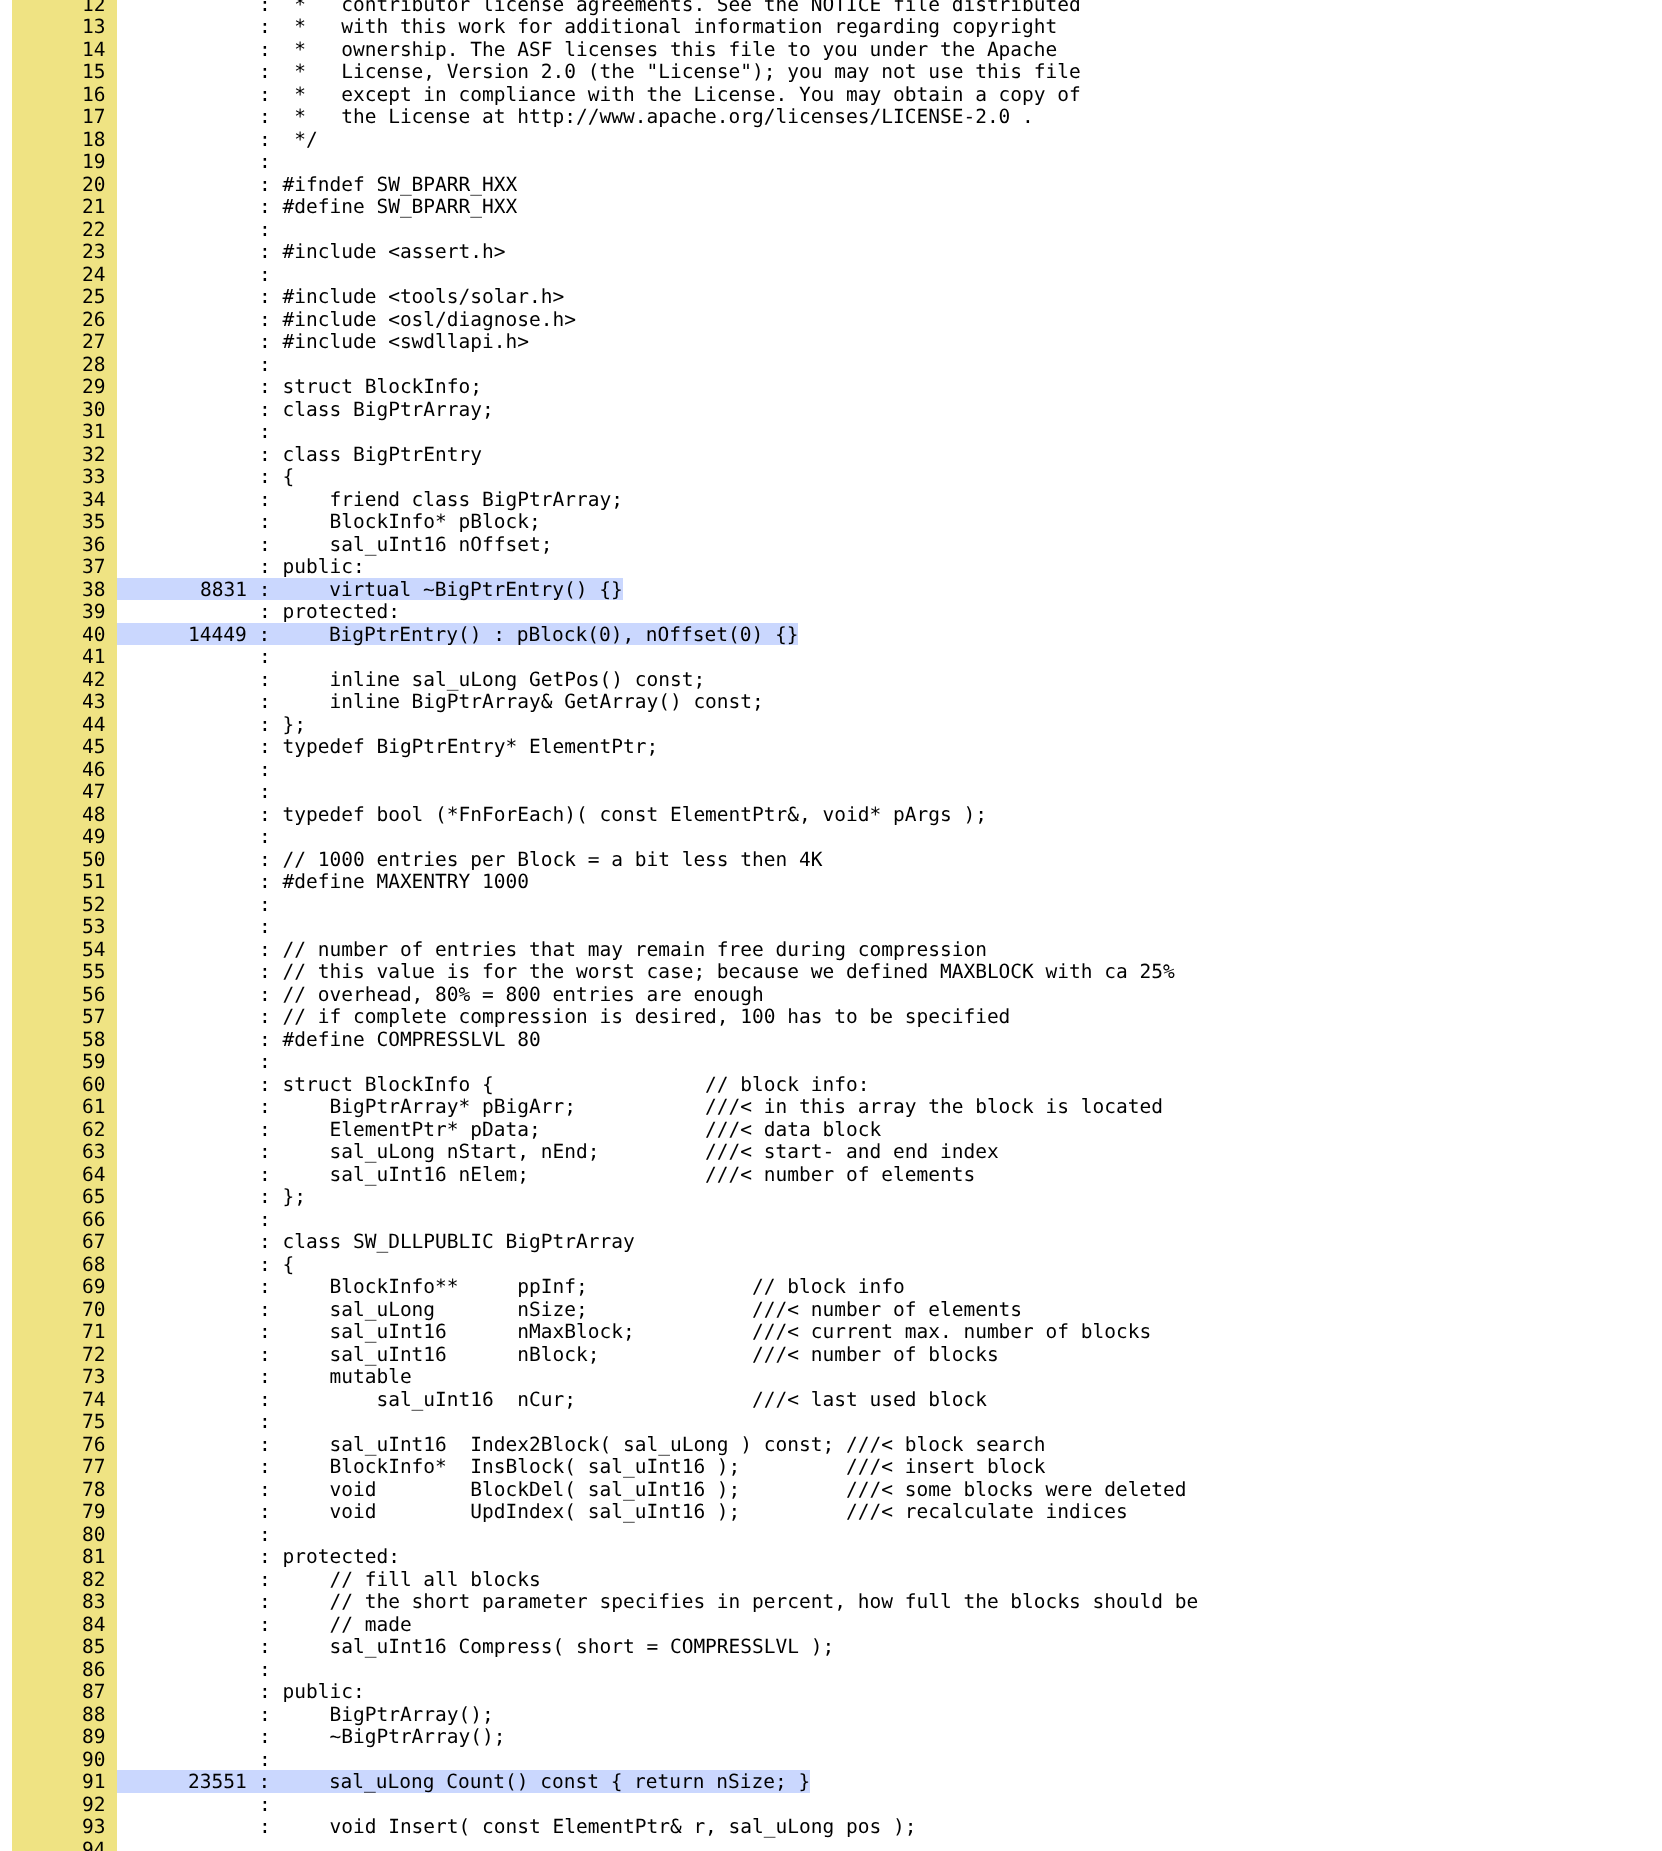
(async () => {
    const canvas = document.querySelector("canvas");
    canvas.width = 1662;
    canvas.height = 1851;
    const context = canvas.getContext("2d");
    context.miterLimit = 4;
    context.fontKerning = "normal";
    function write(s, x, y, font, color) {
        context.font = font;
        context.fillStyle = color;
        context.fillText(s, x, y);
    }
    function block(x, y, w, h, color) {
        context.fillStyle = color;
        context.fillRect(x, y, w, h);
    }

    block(0, 0, 1662, 1851, "rgb(255, 255, 255)");
    block(12, 0, 105, 1851, "rgb(239, 227, 131)");
    write("12", 82, 11, "19.5px DejaVu Sans Mono", "rgb(0, 0, 0)");
    write(":  *   contributor license agreements. See the NOTICE file distributed", 259, 11, "19.5px DejaVu Sans Mono", "rgb(0, 0, 0)");
    write("13", 82, 33, "19.5px DejaVu Sans Mono", "rgb(0, 0, 0)");
    write(":  *   with this work for additional information regarding copyright", 259, 33, "19.5px DejaVu Sans Mono", "rgb(0, 0, 0)");
    write("14", 82, 56, "19.5px DejaVu Sans Mono", "rgb(0, 0, 0)");
    write(":  *   ownership. The ASF licenses this file to you under the Apache", 259, 56, "19.5px DejaVu Sans Mono", "rgb(0, 0, 0)");
    write("15", 82, 78, "19.5px DejaVu Sans Mono", "rgb(0, 0, 0)");
    write(":  *   License, Version 2.0 (the \"License\"); you may not use this file", 259, 78, "19.5px DejaVu Sans Mono", "rgb(0, 0, 0)");
    write("16", 82, 101, "19.5px DejaVu Sans Mono", "rgb(0, 0, 0)");
    write(":  *   except in compliance with the License. You may obtain a copy of", 259, 101, "19.5px DejaVu Sans Mono", "rgb(0, 0, 0)");
    write("17", 82, 123, "19.5px DejaVu Sans Mono", "rgb(0, 0, 0)");
    write(":  *   the License at http://www.apache.org/licenses/LICENSE-2.0 .", 259, 123, "19.5px DejaVu Sans Mono", "rgb(0, 0, 0)");
    write("18", 82, 146, "19.5px DejaVu Sans Mono", "rgb(0, 0, 0)");
    write(":  */", 259, 146, "19.5px DejaVu Sans Mono", "rgb(0, 0, 0)");
    write("19", 82, 168, "19.5px DejaVu Sans Mono", "rgb(0, 0, 0)");
    write(":", 259, 168, "19.5px DejaVu Sans Mono", "rgb(0, 0, 0)");
    write("20", 82, 191, "19.5px DejaVu Sans Mono", "rgb(0, 0, 0)");
    write(": #ifndef SW_BPARR_HXX", 259, 191, "19.5px DejaVu Sans Mono", "rgb(0, 0, 0)");
    write("21", 82, 213, "19.5px DejaVu Sans Mono", "rgb(0, 0, 0)");
    write(": #define SW_BPARR_HXX", 259, 213, "19.5px DejaVu Sans Mono", "rgb(0, 0, 0)");
    write("22", 82, 236, "19.5px DejaVu Sans Mono", "rgb(0, 0, 0)");
    write(":", 259, 236, "19.5px DejaVu Sans Mono", "rgb(0, 0, 0)");
    write("23", 82, 258, "19.5px DejaVu Sans Mono", "rgb(0, 0, 0)");
    write(": #include <assert.h>", 259, 258, "19.5px DejaVu Sans Mono", "rgb(0, 0, 0)");
    write("24", 82, 281, "19.5px DejaVu Sans Mono", "rgb(0, 0, 0)");
    write(":", 259, 281, "19.5px DejaVu Sans Mono", "rgb(0, 0, 0)");
    write("25", 82, 303, "19.5px DejaVu Sans Mono", "rgb(0, 0, 0)");
    write(": #include <tools/solar.h>", 259, 303, "19.5px DejaVu Sans Mono", "rgb(0, 0, 0)");
    write("26", 82, 326, "19.5px DejaVu Sans Mono", "rgb(0, 0, 0)");
    write(": #include <osl/diagnose.h>", 259, 326, "19.5px DejaVu Sans Mono", "rgb(0, 0, 0)");
    write("27", 82, 348, "19.5px DejaVu Sans Mono", "rgb(0, 0, 0)");
    write(": #include <swdllapi.h>", 259, 348, "19.5px DejaVu Sans Mono", "rgb(0, 0, 0)");
    write("28", 82, 371, "19.5px DejaVu Sans Mono", "rgb(0, 0, 0)");
    write(":", 259, 371, "19.5px DejaVu Sans Mono", "rgb(0, 0, 0)");
    write("29", 82, 393, "19.5px DejaVu Sans Mono", "rgb(0, 0, 0)");
    write(": struct BlockInfo;", 259, 393, "19.5px DejaVu Sans Mono", "rgb(0, 0, 0)");
    write("30", 82, 416, "19.5px DejaVu Sans Mono", "rgb(0, 0, 0)");
    write(": class BigPtrArray;", 259, 416, "19.5px DejaVu Sans Mono", "rgb(0, 0, 0)");
    write("31", 82, 438, "19.5px DejaVu Sans Mono", "rgb(0, 0, 0)");
    write(":", 259, 438, "19.5px DejaVu Sans Mono", "rgb(0, 0, 0)");
    write("32", 82, 461, "19.5px DejaVu Sans Mono", "rgb(0, 0, 0)");
    write(": class BigPtrEntry", 259, 461, "19.5px DejaVu Sans Mono", "rgb(0, 0, 0)");
    write("33", 82, 483, "19.5px DejaVu Sans Mono", "rgb(0, 0, 0)");
    write(": {", 259, 483, "19.5px DejaVu Sans Mono", "rgb(0, 0, 0)");
    write("34", 82, 506, "19.5px DejaVu Sans Mono", "rgb(0, 0, 0)");
    write(":     friend class BigPtrArray;", 259, 506, "19.5px DejaVu Sans Mono", "rgb(0, 0, 0)");
    write("35", 82, 528, "19.5px DejaVu Sans Mono", "rgb(0, 0, 0)");
    write(":     BlockInfo* pBlock;", 259, 528, "19.5px DejaVu Sans Mono", "rgb(0, 0, 0)");
    write("36", 82, 551, "19.5px DejaVu Sans Mono", "rgb(0, 0, 0)");
    write(":     sal_uInt16 nOffset;", 259, 551, "19.5px DejaVu Sans Mono", "rgb(0, 0, 0)");
    write("37", 82, 573, "19.5px DejaVu Sans Mono", "rgb(0, 0, 0)");
    write(": public:", 259, 573, "19.5px DejaVu Sans Mono", "rgb(0, 0, 0)");
    write("38", 82, 596, "19.5px DejaVu Sans Mono", "rgb(0, 0, 0)");
    block(117, 578, 506, 22, "rgb(202, 215, 254)");
    write("8831 :     virtual ~BigPtrEntry() {}", 200, 596, "19.5px DejaVu Sans Mono", "rgb(0, 0, 0)");
    write("39", 82, 618, "19.5px DejaVu Sans Mono", "rgb(0, 0, 0)");
    write(": protected:", 259, 618, "19.5px DejaVu Sans Mono", "rgb(0, 0, 0)");
    write("40", 82, 641, "19.5px DejaVu Sans Mono", "rgb(0, 0, 0)");
    block(117, 623, 681, 22, "rgb(202, 215, 254)");
    write("14449 :     BigPtrEntry() : pBlock(0), nOffset(0) {}", 188, 641, "19.5px DejaVu Sans Mono", "rgb(0, 0, 0)");
    write("41", 82, 663, "19.5px DejaVu Sans Mono", "rgb(0, 0, 0)");
    write(":", 259, 663, "19.5px DejaVu Sans Mono", "rgb(0, 0, 0)");
    write("42", 82, 686, "19.5px DejaVu Sans Mono", "rgb(0, 0, 0)");
    write(":     inline sal_uLong GetPos() const;", 259, 686, "19.5px DejaVu Sans Mono", "rgb(0, 0, 0)");
    write("43", 82, 708, "19.5px DejaVu Sans Mono", "rgb(0, 0, 0)");
    write(":     inline BigPtrArray& GetArray() const;", 259, 708, "19.5px DejaVu Sans Mono", "rgb(0, 0, 0)");
    write("44", 82, 731, "19.5px DejaVu Sans Mono", "rgb(0, 0, 0)");
    write(": };", 259, 731, "19.5px DejaVu Sans Mono", "rgb(0, 0, 0)");
    write("45", 82, 753, "19.5px DejaVu Sans Mono", "rgb(0, 0, 0)");
    write(": typedef BigPtrEntry* ElementPtr;", 259, 753, "19.5px DejaVu Sans Mono", "rgb(0, 0, 0)");
    write("46", 82, 776, "19.5px DejaVu Sans Mono", "rgb(0, 0, 0)");
    write(":", 259, 776, "19.5px DejaVu Sans Mono", "rgb(0, 0, 0)");
    write("47", 82, 798, "19.5px DejaVu Sans Mono", "rgb(0, 0, 0)");
    write(":", 259, 798, "19.5px DejaVu Sans Mono", "rgb(0, 0, 0)");
    write("48", 82, 821, "19.5px DejaVu Sans Mono", "rgb(0, 0, 0)");
    write(": typedef bool (*FnForEach)( const ElementPtr&, void* pArgs );", 259, 821, "19.5px DejaVu Sans Mono", "rgb(0, 0, 0)");
    write("49", 82, 843, "19.5px DejaVu Sans Mono", "rgb(0, 0, 0)");
    write(":", 259, 843, "19.5px DejaVu Sans Mono", "rgb(0, 0, 0)");
    write("50", 82, 866, "19.5px DejaVu Sans Mono", "rgb(0, 0, 0)");
    write(": // 1000 entries per Block = a bit less then 4K", 259, 866, "19.5px DejaVu Sans Mono", "rgb(0, 0, 0)");
    write("51", 82, 888, "19.5px DejaVu Sans Mono", "rgb(0, 0, 0)");
    write(": #define MAXENTRY 1000", 259, 888, "19.5px DejaVu Sans Mono", "rgb(0, 0, 0)");
    write("52", 82, 911, "19.5px DejaVu Sans Mono", "rgb(0, 0, 0)");
    write(":", 259, 911, "19.5px DejaVu Sans Mono", "rgb(0, 0, 0)");
    write("53", 82, 933, "19.5px DejaVu Sans Mono", "rgb(0, 0, 0)");
    write(":", 259, 933, "19.5px DejaVu Sans Mono", "rgb(0, 0, 0)");
    write("54", 82, 956, "19.5px DejaVu Sans Mono", "rgb(0, 0, 0)");
    write(": // number of entries that may remain free during compression", 259, 956, "19.5px DejaVu Sans Mono", "rgb(0, 0, 0)");
    write("55", 82, 978, "19.5px DejaVu Sans Mono", "rgb(0, 0, 0)");
    write(": // this value is for the worst case; because we defined MAXBLOCK with ca 25%", 259, 978, "19.5px DejaVu Sans Mono", "rgb(0, 0, 0)");
    write("56", 82, 1001, "19.5px DejaVu Sans Mono", "rgb(0, 0, 0)");
    write(": // overhead, 80% = 800 entries are enough", 259, 1001, "19.5px DejaVu Sans Mono", "rgb(0, 0, 0)");
    write("57", 82, 1023, "19.5px DejaVu Sans Mono", "rgb(0, 0, 0)");
    write(": // if complete compression is desired, 100 has to be specified", 259, 1023, "19.5px DejaVu Sans Mono", "rgb(0, 0, 0)");
    write("58", 82, 1046, "19.5px DejaVu Sans Mono", "rgb(0, 0, 0)");
    write(": #define COMPRESSLVL 80", 259, 1046, "19.5px DejaVu Sans Mono", "rgb(0, 0, 0)");
    write("59", 82, 1068, "19.5px DejaVu Sans Mono", "rgb(0, 0, 0)");
    write(":", 259, 1068, "19.5px DejaVu Sans Mono", "rgb(0, 0, 0)");
    write("60", 82, 1091, "19.5px DejaVu Sans Mono", "rgb(0, 0, 0)");
    write(": struct BlockInfo {                  // block info:", 259, 1091, "19.5px DejaVu Sans Mono", "rgb(0, 0, 0)");
    write("61", 82, 1113, "19.5px DejaVu Sans Mono", "rgb(0, 0, 0)");
    write(":     BigPtrArray* pBigArr;           ///< in this array the block is located", 259, 1113, "19.5px DejaVu Sans Mono", "rgb(0, 0, 0)");
    write("62", 82, 1136, "19.5px DejaVu Sans Mono", "rgb(0, 0, 0)");
    write(":     ElementPtr* pData;              ///< data block", 259, 1136, "19.5px DejaVu Sans Mono", "rgb(0, 0, 0)");
    write("63", 82, 1158, "19.5px DejaVu Sans Mono", "rgb(0, 0, 0)");
    write(":     sal_uLong nStart, nEnd;         ///< start- and end index", 259, 1158, "19.5px DejaVu Sans Mono", "rgb(0, 0, 0)");
    write("64", 82, 1181, "19.5px DejaVu Sans Mono", "rgb(0, 0, 0)");
    write(":     sal_uInt16 nElem;               ///< number of elements", 259, 1181, "19.5px DejaVu Sans Mono", "rgb(0, 0, 0)");
    write("65", 82, 1203, "19.5px DejaVu Sans Mono", "rgb(0, 0, 0)");
    write(": };", 259, 1203, "19.5px DejaVu Sans Mono", "rgb(0, 0, 0)");
    write("66", 82, 1226, "19.5px DejaVu Sans Mono", "rgb(0, 0, 0)");
    write(":", 259, 1226, "19.5px DejaVu Sans Mono", "rgb(0, 0, 0)");
    write("67", 82, 1248, "19.5px DejaVu Sans Mono", "rgb(0, 0, 0)");
    write(": class SW_DLLPUBLIC BigPtrArray", 259, 1248, "19.5px DejaVu Sans Mono", "rgb(0, 0, 0)");
    write("68", 82, 1271, "19.5px DejaVu Sans Mono", "rgb(0, 0, 0)");
    write(": {", 259, 1271, "19.5px DejaVu Sans Mono", "rgb(0, 0, 0)");
    write("69", 82, 1293, "19.5px DejaVu Sans Mono", "rgb(0, 0, 0)");
    write(":     BlockInfo**     ppInf;              // block info", 259, 1293, "19.5px DejaVu Sans Mono", "rgb(0, 0, 0)");
    write("70", 82, 1316, "19.5px DejaVu Sans Mono", "rgb(0, 0, 0)");
    write(":     sal_uLong       nSize;              ///< number of elements", 259, 1316, "19.5px DejaVu Sans Mono", "rgb(0, 0, 0)");
    write("71", 82, 1338, "19.5px DejaVu Sans Mono", "rgb(0, 0, 0)");
    write(":     sal_uInt16      nMaxBlock;          ///< current max. number of blocks", 259, 1338, "19.5px DejaVu Sans Mono", "rgb(0, 0, 0)");
    write("72", 82, 1361, "19.5px DejaVu Sans Mono", "rgb(0, 0, 0)");
    write(":     sal_uInt16      nBlock;             ///< number of blocks", 259, 1361, "19.5px DejaVu Sans Mono", "rgb(0, 0, 0)");
    write("73", 82, 1383, "19.5px DejaVu Sans Mono", "rgb(0, 0, 0)");
    write(":     mutable", 259, 1383, "19.5px DejaVu Sans Mono", "rgb(0, 0, 0)");
    write("74", 82, 1406, "19.5px DejaVu Sans Mono", "rgb(0, 0, 0)");
    write(":         sal_uInt16  nCur;               ///< last used block", 259, 1406, "19.5px DejaVu Sans Mono", "rgb(0, 0, 0)");
    write("75", 82, 1428, "19.5px DejaVu Sans Mono", "rgb(0, 0, 0)");
    write(":", 259, 1428, "19.5px DejaVu Sans Mono", "rgb(0, 0, 0)");
    write("76", 82, 1451, "19.5px DejaVu Sans Mono", "rgb(0, 0, 0)");
    write(":     sal_uInt16  Index2Block( sal_uLong ) const; ///< block search", 259, 1451, "19.5px DejaVu Sans Mono", "rgb(0, 0, 0)");
    write("77", 82, 1473, "19.5px DejaVu Sans Mono", "rgb(0, 0, 0)");
    write(":     BlockInfo*  InsBlock( sal_uInt16 );         ///< insert block", 259, 1473, "19.5px DejaVu Sans Mono", "rgb(0, 0, 0)");
    write("78", 82, 1496, "19.5px DejaVu Sans Mono", "rgb(0, 0, 0)");
    write(":     void        BlockDel( sal_uInt16 );         ///< some blocks were deleted", 259, 1496, "19.5px DejaVu Sans Mono", "rgb(0, 0, 0)");
    write("79", 82, 1518, "19.5px DejaVu Sans Mono", "rgb(0, 0, 0)");
    write(":     void        UpdIndex( sal_uInt16 );         ///< recalculate indices", 259, 1518, "19.5px DejaVu Sans Mono", "rgb(0, 0, 0)");
    write("80", 82, 1541, "19.5px DejaVu Sans Mono", "rgb(0, 0, 0)");
    write(":", 259, 1541, "19.5px DejaVu Sans Mono", "rgb(0, 0, 0)");
    write("81", 82, 1563, "19.5px DejaVu Sans Mono", "rgb(0, 0, 0)");
    write(": protected:", 259, 1563, "19.5px DejaVu Sans Mono", "rgb(0, 0, 0)");
    write("82", 82, 1586, "19.5px DejaVu Sans Mono", "rgb(0, 0, 0)");
    write(":     // fill all blocks", 259, 1586, "19.5px DejaVu Sans Mono", "rgb(0, 0, 0)");
    write("83", 82, 1608, "19.5px DejaVu Sans Mono", "rgb(0, 0, 0)");
    write(":     // the short parameter specifies in percent, how full the blocks should be", 259, 1608, "19.5px DejaVu Sans Mono", "rgb(0, 0, 0)");
    write("84", 82, 1631, "19.5px DejaVu Sans Mono", "rgb(0, 0, 0)");
    write(":     // made", 259, 1631, "19.5px DejaVu Sans Mono", "rgb(0, 0, 0)");
    write("85", 82, 1653, "19.5px DejaVu Sans Mono", "rgb(0, 0, 0)");
    write(":     sal_uInt16 Compress( short = COMPRESSLVL );", 259, 1653, "19.5px DejaVu Sans Mono", "rgb(0, 0, 0)");
    write("86", 82, 1676, "19.5px DejaVu Sans Mono", "rgb(0, 0, 0)");
    write(":", 259, 1676, "19.5px DejaVu Sans Mono", "rgb(0, 0, 0)");
    write("87", 82, 1698, "19.5px DejaVu Sans Mono", "rgb(0, 0, 0)");
    write(": public:", 259, 1698, "19.5px DejaVu Sans Mono", "rgb(0, 0, 0)");
    write("88", 82, 1721, "19.5px DejaVu Sans Mono", "rgb(0, 0, 0)");
    write(":     BigPtrArray();", 259, 1721, "19.5px DejaVu Sans Mono", "rgb(0, 0, 0)");
    write("89", 82, 1743, "19.5px DejaVu Sans Mono", "rgb(0, 0, 0)");
    write(":     ~BigPtrArray();", 259, 1743, "19.5px DejaVu Sans Mono", "rgb(0, 0, 0)");
    write("90", 82, 1766, "19.5px DejaVu Sans Mono", "rgb(0, 0, 0)");
    write(":", 259, 1766, "19.5px DejaVu Sans Mono", "rgb(0, 0, 0)");
    write("91", 82, 1788, "19.5px DejaVu Sans Mono", "rgb(0, 0, 0)");
    block(117, 1770, 693, 23, "rgb(202, 215, 254)");
    write("23551 :     sal_uLong Count() const { return nSize; }", 188, 1788, "19.5px DejaVu Sans Mono", "rgb(0, 0, 0)");
    write("92", 82, 1811, "19.5px DejaVu Sans Mono", "rgb(0, 0, 0)");
    write(":", 259, 1811, "19.5px DejaVu Sans Mono", "rgb(0, 0, 0)");
    write("93", 82, 1833, "19.5px DejaVu Sans Mono", "rgb(0, 0, 0)");
    write(":     void Insert( const ElementPtr& r, sal_uLong pos );", 259, 1833, "19.5px DejaVu Sans Mono", "rgb(0, 0, 0)");
    write("94", 82, 1856, "19.5px DejaVu Sans Mono", "rgb(0, 0, 0)");
})();
